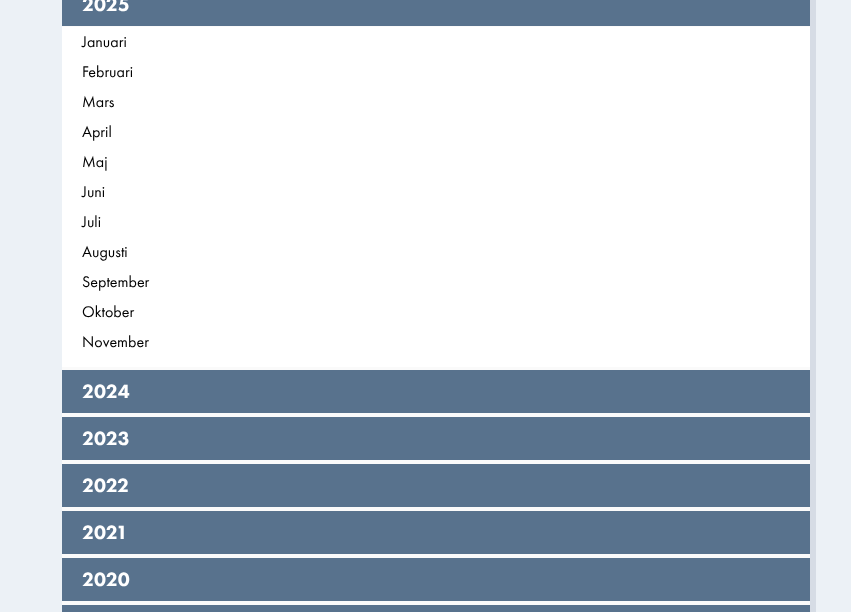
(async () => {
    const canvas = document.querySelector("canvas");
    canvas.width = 851;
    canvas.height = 612;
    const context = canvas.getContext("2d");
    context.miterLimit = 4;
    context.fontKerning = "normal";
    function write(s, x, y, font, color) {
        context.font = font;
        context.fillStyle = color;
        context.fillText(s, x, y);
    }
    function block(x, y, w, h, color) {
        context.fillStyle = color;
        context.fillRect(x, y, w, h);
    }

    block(0, 0, 851, 612, "rgb(236, 241, 246)");
    context.fillStyle = "rgb(214, 220, 229)";
    context.beginPath();
    context.moveTo(68, 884);
    context.lineTo(68, 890);
    context.lineTo(816, 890);
    context.lineTo(816, -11);
    context.lineTo(810, -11);
    context.lineTo(810, 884);
    context.closePath();
    context.fill();
    block(62, 367, 748, 238, "rgb(250, 250, 250)");
    block(62, 27, 748, 340, "rgb(255, 255, 255)");
    block(62, 0, 748, 26, "rgb(88, 114, 141)");
    block(62, 26, 748, 1, "rgb(250, 250, 250)");
    write("2025", 82, 11, "900 20px Futura PT", "rgb(255, 255, 255)");
    write("Januari", 82, 47, "16px Futura PT", "rgb(0, 0, 0)");
    write("Februari", 82, 77, "16px Futura PT", "rgb(0, 0, 0)");
    write("Mars", 82, 107, "16px Futura PT", "rgb(0, 0, 0)");
    write("April", 82, 137, "16px Futura PT", "rgb(0, 0, 0)");
    write("Maj", 82, 167, "16px Futura PT", "rgb(0, 0, 0)");
    write("Juni", 82, 197, "16px Futura PT", "rgb(0, 0, 0)");
    write("Juli", 82, 227, "16px Futura PT", "rgb(0, 0, 0)");
    write("Augusti", 82, 257, "16px Futura PT", "rgb(0, 0, 0)");
    write("September", 82, 287, "16px Futura PT", "rgb(0, 0, 0)");
    write("Oktober", 82, 317, "16px Futura PT", "rgb(0, 0, 0)");
    write("November", 82, 347, "16px Futura PT", "rgb(0, 0, 0)");
    block(62, 370, 748, 43, "rgb(88, 114, 141)");
    write("2024", 82, 398, "900 20px Futura PT", "rgb(255, 255, 255)");
    block(62, 417, 748, 43, "rgb(88, 114, 141)");
    write("2023", 82, 445, "900 20px Futura PT", "rgb(255, 255, 255)");
    block(62, 464, 748, 43, "rgb(88, 114, 141)");
    write("2022", 82, 492, "900 20px Futura PT", "rgb(255, 255, 255)");
    block(62, 511, 748, 43, "rgb(88, 114, 141)");
    write("2021", 82, 539, "900 20px Futura PT", "rgb(255, 255, 255)");
    block(62, 558, 748, 43, "rgb(88, 114, 141)");
    write("2020", 82, 586, "900 20px Futura PT", "rgb(255, 255, 255)");
    block(62, 605, 748, 7, "rgb(88, 114, 141)");
})();
